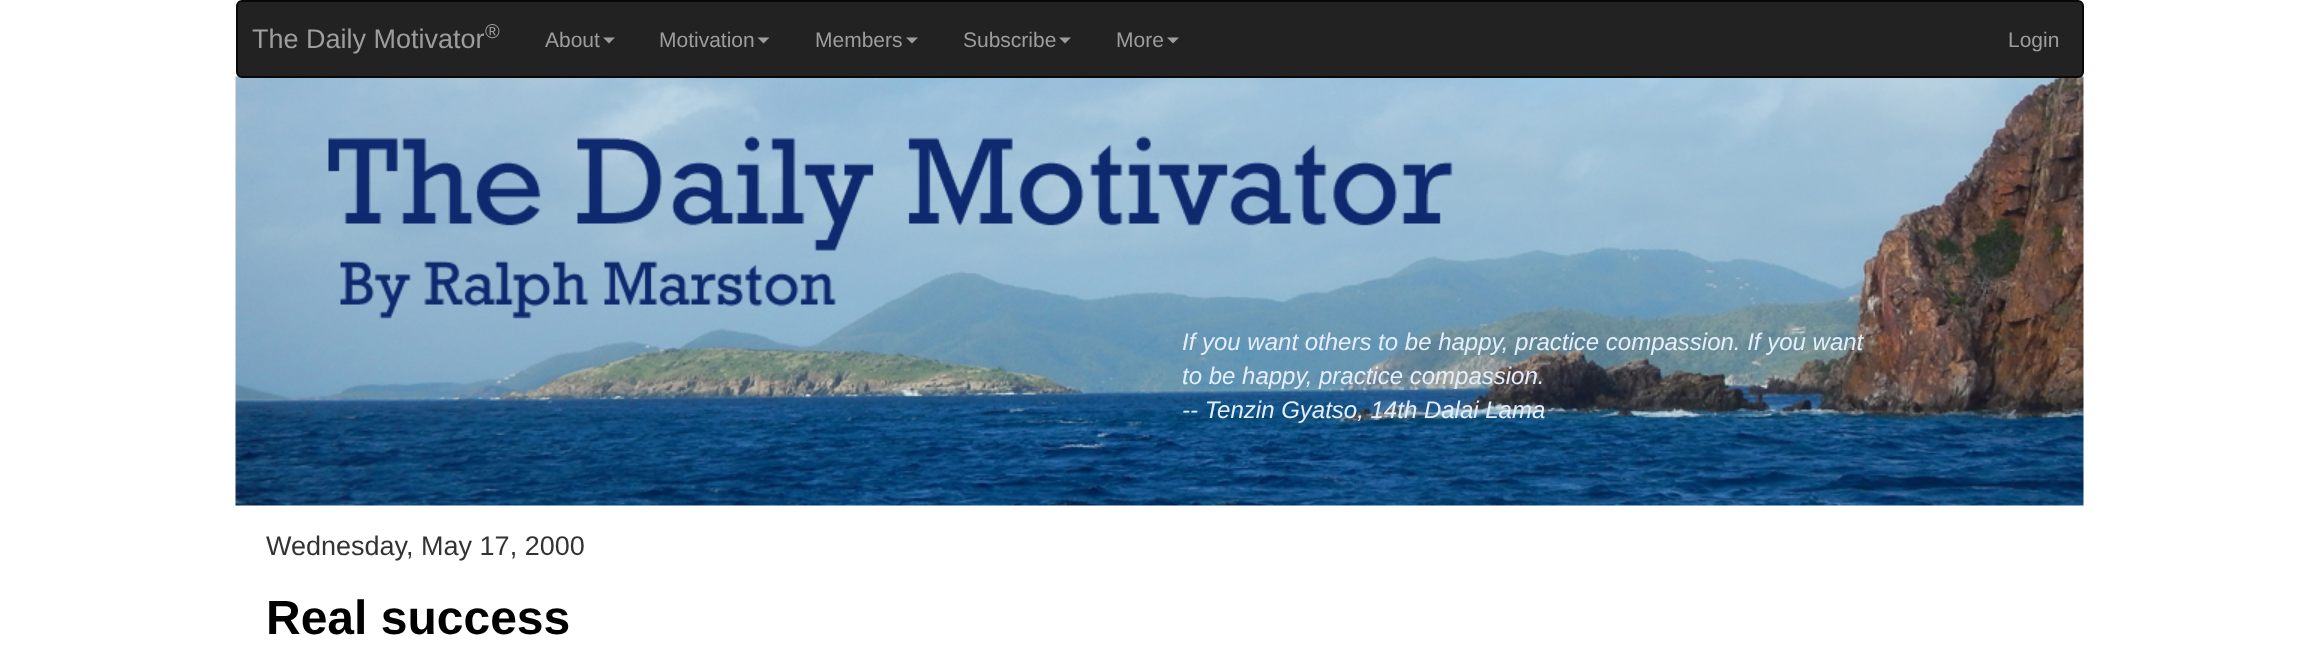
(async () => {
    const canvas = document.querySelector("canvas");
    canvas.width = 2318;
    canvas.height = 662;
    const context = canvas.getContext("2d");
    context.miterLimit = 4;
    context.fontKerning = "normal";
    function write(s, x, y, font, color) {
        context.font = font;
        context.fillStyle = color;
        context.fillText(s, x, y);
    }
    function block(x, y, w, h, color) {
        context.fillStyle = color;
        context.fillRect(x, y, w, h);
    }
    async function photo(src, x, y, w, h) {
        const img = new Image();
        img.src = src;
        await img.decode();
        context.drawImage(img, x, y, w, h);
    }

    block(0, 0, 2318, 662, "rgb(255, 255, 255)");
    await photo("media/1.png", 235, 76, 1849, 430);
    context.fillStyle = "rgb(34, 34, 34)";
    context.beginPath();
    context.roundRect(237, 1, 1846, 76, 5);
    context.fill();
    context.strokeStyle = "rgb(8, 8, 8)";
    context.lineWidth = 2;
    context.stroke();
    write("The Daily Motivator", 252, 48, "27px Liberation Sans", "rgb(157, 157, 157)");
    write("®", 485, 38, "20px Liberation Sans", "rgb(157, 157, 157)");
    write("About", 545, 47, "21px Liberation Sans", "rgb(157, 157, 157)");
    context.beginPath();
    context.moveTo(603, 37.5);
    context.lineTo(615, 37.5);
    context.lineTo(609, 43.5);
    context.closePath();
    context.fill();
    write("Motivation", 659, 47, "21px Liberation Sans", "rgb(157, 157, 157)");
    context.beginPath();
    context.moveTo(757.5, 37.5);
    context.lineTo(769.5, 37.5);
    context.lineTo(763.5, 43.5);
    context.closePath();
    context.fill();
    write("Members", 815, 47, "21px Liberation Sans", "rgb(157, 157, 157)");
    context.beginPath();
    context.moveTo(906, 37.5);
    context.lineTo(918, 37.5);
    context.lineTo(912, 43.5);
    context.closePath();
    context.fill();
    write("Subscribe", 963, 47, "21px Liberation Sans", "rgb(157, 157, 157)");
    context.beginPath();
    context.moveTo(1059, 37.5);
    context.lineTo(1071, 37.5);
    context.lineTo(1065, 43.5);
    context.closePath();
    context.fill();
    write("More", 1116, 47, "21px Liberation Sans", "rgb(157, 157, 157)");
    context.beginPath();
    context.moveTo(1167, 37.5);
    context.lineTo(1179, 37.5);
    context.lineTo(1173, 43.5);
    context.closePath();
    context.fill();
    write("Login", 2008, 47, "21px Liberation Sans", "rgb(157, 157, 157)");
    write("If you want others to be happy, practice compassion. If you want", 1182, 350, "italic 24px Liberation Sans", "rgb(226, 238, 251)");
    write("to be happy, practice compassion.", 1182, 384, "italic 24px Liberation Sans", "rgb(226, 238, 251)");
    write("-- Tenzin Gyatso, 14th Dalai Lama", 1182, 418, "italic 24px Liberation Sans", "rgb(226, 238, 251)");
    write("Wednesday, May 17, 2000", 266, 555, "27px Liberation Sans", "rgb(51, 51, 51)");
    write("Real success", 266, 634, "bold 48px Liberation Sans", "rgb(0, 0, 0)");
})();
